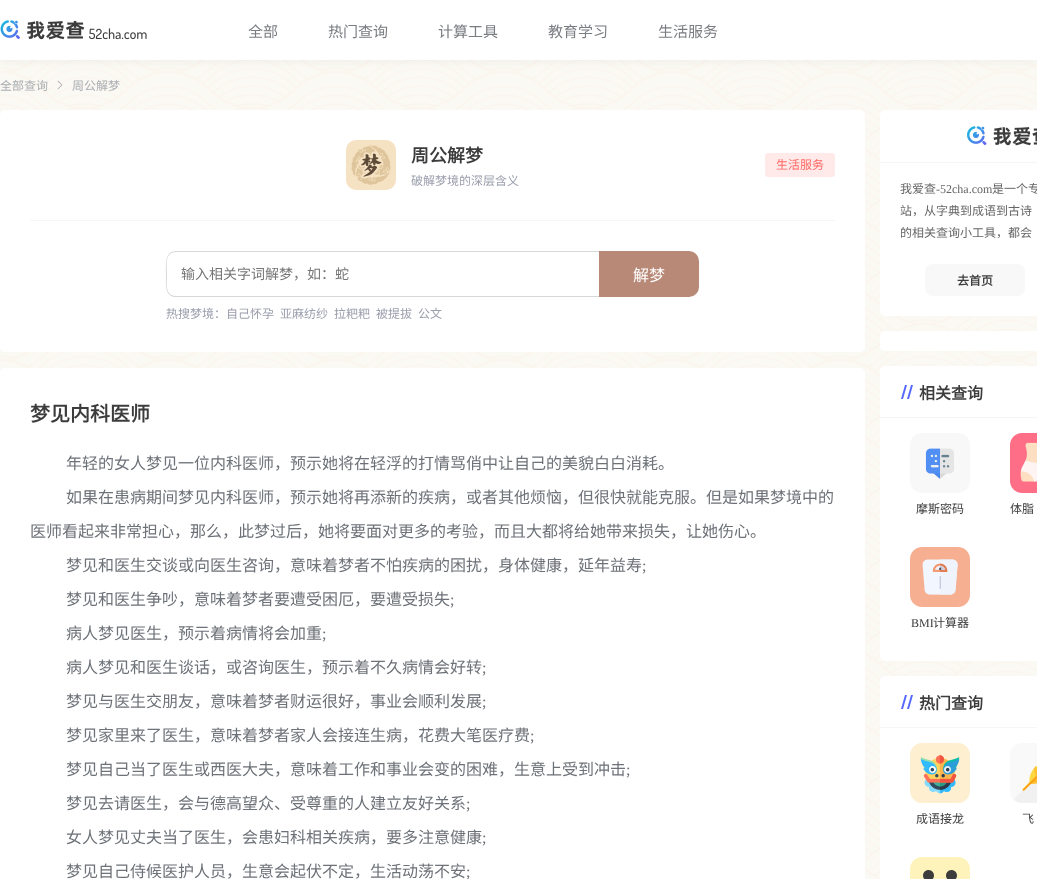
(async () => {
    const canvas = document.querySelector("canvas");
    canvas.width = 1037;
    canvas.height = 879;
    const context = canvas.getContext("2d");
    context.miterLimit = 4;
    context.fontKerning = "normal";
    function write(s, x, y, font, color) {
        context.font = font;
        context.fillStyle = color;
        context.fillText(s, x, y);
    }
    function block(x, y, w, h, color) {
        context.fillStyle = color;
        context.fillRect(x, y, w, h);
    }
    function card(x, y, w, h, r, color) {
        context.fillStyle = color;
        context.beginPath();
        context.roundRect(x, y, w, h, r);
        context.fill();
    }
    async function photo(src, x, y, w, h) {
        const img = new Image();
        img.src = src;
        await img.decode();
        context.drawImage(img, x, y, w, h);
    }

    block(0, 0, 1037, 879, "rgb(255, 255, 255)");
    await photo("media/1.png", 0, 60, 1037, 819);
    context.fillStyle = "rgba(153, 153, 153, 0.1)";
    context.filter = "blur(5px)";
    context.beginPath();
    context.rect(0, 2, 1037, 60);
    context.fill();
    context.filter = "none";
    block(0, 0, 1037, 60, "rgb(255, 255, 255)");
    await photo("media/2.png", 0, 20, 147, 20);
    write("全部", 248, 37, "15px Noto Sans CJK SC", "rgb(121, 124, 128)");
    write("热门查询", 328, 37, "15px Noto Sans CJK SC", "rgb(121, 124, 128)");
    write("计算工具", 438, 37, "15px Noto Sans CJK SC", "rgb(121, 124, 128)");
    write("教育学习", 548, 37, "15px Noto Sans CJK SC", "rgb(121, 124, 128)");
    write("生活服务", 658, 37, "15px Noto Sans CJK SC", "rgb(121, 124, 128)");
    write("全部查询", 0, 90, "12px Noto Sans CJK SC", "rgb(170, 174, 179)");
    await photo("media/3.png", 57, 80, 6, 10);
    write("周公解梦", 72, 90, "12px Noto Sans CJK SC", "rgb(170, 174, 179)");
    card(0, 110, 865, 242, 5, "rgb(255, 255, 255)");
    await photo("media/4.png", 346, 140, 50, 50);
    write("周公解梦", 411, 162, "bold 18px Noto Sans CJK SC", "rgb(60, 60, 60)");
    write("破解梦境的深层含义", 411, 185, "12px Noto Sans CJK SC", "rgb(155, 158, 172)");
    card(765, 153, 70, 24, 3, "rgb(255, 233, 233)");
    write("生活服务", 776, 169, "12px Noto Sans CJK SC", "rgb(255, 106, 101)");
    block(30, 220, 805, 1, "rgb(245, 246, 247)");
    context.fillStyle = "rgb(214, 215, 215)";
    context.beginPath();
    context.moveTo(176, 251);
    context.lineTo(599, 251);
    context.lineTo(599, 297);
    context.lineTo(174, 297);
    context.bezierCurveTo(164, 295, 166, 282, 166, 274);
    context.bezierCurveTo(166, 266, 164, 251, 176, 251);
    context.closePath();
    context.moveTo(176, 252);
    context.lineTo(599, 252);
    context.lineTo(599, 296);
    context.lineTo(176, 296);
    context.bezierCurveTo(164, 296, 167, 281, 167, 274);
    context.bezierCurveTo(167, 267, 164, 252, 176, 252);
    context.closePath();
    context.fill("evenodd");
    write("输入相关字词解梦，如：蛇", 181, 279, "14px Noto Sans CJK SC", "rgb(117, 117, 117)");
    context.fillStyle = "rgb(184, 137, 119)";
    context.beginPath();
    context.roundRect(599, 251, 100, 46, [0, 10, 10, 0]);
    context.fill();
    write("解梦", 633, 281, "16px Noto Sans CJK SC", "rgb(255, 255, 255)");
    write("热搜梦境：自己怀孕", 166, 318, "12px Noto Sans CJK SC", "rgb(155, 158, 172)");
    write("亚麻纺纱", 280, 318, "12px Noto Sans CJK SC", "rgb(155, 158, 172)");
    write("拉粑粑", 334, 318, "12px Noto Sans CJK SC", "rgb(155, 158, 172)");
    write("被提拔", 376, 318, "12px Noto Sans CJK SC", "rgb(155, 158, 172)");
    write("公文", 418, 318, "12px Noto Sans CJK SC", "rgb(155, 158, 172)");
    card(0, 368, 865, 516, 5, "rgb(255, 255, 255)");
    write("梦见内科医师", 30, 421, "bold 20px Noto Sans CJK SC", "rgb(60, 60, 60)");
    write("年轻的女人梦见一位内科医师，预示她将在轻浮的打情骂俏中让自己的美貌白白消耗。", 66, 469, "16px Noto Sans CJK SC", "rgb(109, 114, 120)");
    write("如果在患病期间梦见内科医师，预示她将再添新的疾病，或者其他烦恼，但很快就能克服。但是如果梦境中的", 66, 503, "16px Noto Sans CJK SC", "rgb(109, 114, 120)");
    write("医师看起来非常担心，那么，此梦过后，她将要面对更多的考验，而且大都将给她带来损失，让她伤心。", 30, 537, "16px Noto Sans CJK SC", "rgb(109, 114, 120)");
    write("梦见和医生交谈或向医生咨询，意味着梦者不怕疾病的困扰，身体健康，延年益寿", 66, 571, "16px Noto Sans CJK SC", "rgb(109, 114, 120)");
    write(";", 642, 571, "16px Liberation Serif", "rgb(109, 114, 120)");
    write("梦见和医生争吵，意味着梦者要遭受困厄，要遭受损失", 66, 605, "16px Noto Sans CJK SC", "rgb(109, 114, 120)");
    write(";", 450, 605, "16px Liberation Serif", "rgb(109, 114, 120)");
    write("病人梦见医生，预示着病情将会加重", 66, 639, "16px Noto Sans CJK SC", "rgb(109, 114, 120)");
    write(";", 322, 639, "16px Liberation Serif", "rgb(109, 114, 120)");
    write("病人梦见和医生谈话，或咨询医生，预示着不久病情会好转", 66, 673, "16px Noto Sans CJK SC", "rgb(109, 114, 120)");
    write(";", 482, 673, "16px Liberation Serif", "rgb(109, 114, 120)");
    write("梦见与医生交朋友，意味着梦者财运很好，事业会顺利发展", 66, 707, "16px Noto Sans CJK SC", "rgb(109, 114, 120)");
    write(";", 482, 707, "16px Liberation Serif", "rgb(109, 114, 120)");
    write("梦见家里来了医生，意味着梦者家人会接连生病，花费大笔医疗费", 66, 741, "16px Noto Sans CJK SC", "rgb(109, 114, 120)");
    write(";", 530, 741, "16px Liberation Serif", "rgb(109, 114, 120)");
    write("梦见自己当了医生或西医大夫，意味着工作和事业会变的困难，生意上受到冲击", 66, 775, "16px Noto Sans CJK SC", "rgb(109, 114, 120)");
    write(";", 626, 775, "16px Liberation Serif", "rgb(109, 114, 120)");
    write("梦见去请医生，会与德高望众、受尊重的人建立友好关系", 66, 809, "16px Noto Sans CJK SC", "rgb(109, 114, 120)");
    write(";", 466, 809, "16px Liberation Serif", "rgb(109, 114, 120)");
    write("女人梦见丈夫当了医生，会患妇科相关疾病，要多注意健康", 66, 843, "16px Noto Sans CJK SC", "rgb(109, 114, 120)");
    write(";", 482, 843, "16px Liberation Serif", "rgb(109, 114, 120)");
    write("梦见自己侍候医护人员，生意会起伏不定，生活动荡不安", 66, 877, "16px Noto Sans CJK SC", "rgb(109, 114, 120)");
    write(";", 466, 877, "16px Liberation Serif", "rgb(109, 114, 120)");
    card(880, 110, 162, 206, 5, "rgb(255, 255, 255)");
    block(880, 162, 157, 1, "rgb(245, 246, 247)");
    await photo("media/5.png", 967, 126, 70, 20);
    write("我爱查", 900, 193, "12px Noto Sans CJK SC", "rgb(102, 102, 102)");
    write("-52cha.com", 936, 193, "12px Liberation Serif", "rgb(102, 102, 102)");
    write("是一个专", 992, 193, "12px Noto Sans CJK SC", "rgb(102, 102, 102)");
    write("站，从字典到成语到古诗", 900, 215, "12px Noto Sans CJK SC", "rgb(102, 102, 102)");
    write("的相关查询小工具，都会", 900, 237, "12px Noto Sans CJK SC", "rgb(102, 102, 102)");
    card(925, 264, 100, 32, 8, "rgb(248, 248, 248)");
    write("去首页", 957, 285, "bold 12px Noto Sans CJK SC", "rgb(60, 60, 60)");
    card(880, 331, 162, 20, 5, "rgb(255, 255, 255)");
    card(880, 366, 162, 295, 5, "rgb(255, 255, 255)");
    block(880, 417, 157, 1, "rgb(245, 246, 247)");
    await photo("media/6.png", 901, 385, 12, 14);
    write("相关查询", 919, 399, "bold 16px Noto Sans CJK SC", "rgb(60, 60, 60)");
    await photo("media/7.png", 910, 433, 60, 60);
    write("摩斯密码", 916, 513, "12px Noto Sans CJK SC", "rgb(60, 60, 60)");
    await photo("media/8.png", 1010, 433, 27, 60);
    write("体脂", 1010, 513, "12px Noto Sans CJK SC", "rgb(60, 60, 60)");
    await photo("media/9.png", 910, 547, 60, 60);
    write("BMI", 911, 627, "12px Liberation Serif", "rgb(60, 60, 60)");
    write("计算器", 933, 627, "12px Noto Sans CJK SC", "rgb(60, 60, 60)");
    card(880, 676, 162, 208, 5, "rgb(255, 255, 255)");
    block(880, 727, 157, 1, "rgb(245, 246, 247)");
    await photo("media/6.png", 901, 695, 12, 14);
    write("热门查询", 919, 709, "bold 16px Noto Sans CJK SC", "rgb(60, 60, 60)");
    await photo("media/10.png", 910, 743, 60, 60);
    write("成语接龙", 916, 823, "12px Noto Sans CJK SC", "rgb(60, 60, 60)");
    await photo("media/11.png", 1010, 743, 27, 60);
    write("飞", 1022, 823, "12px Noto Sans CJK SC", "rgb(60, 60, 60)");
    await photo("media/12.png", 910, 857, 60, 22);
})();
